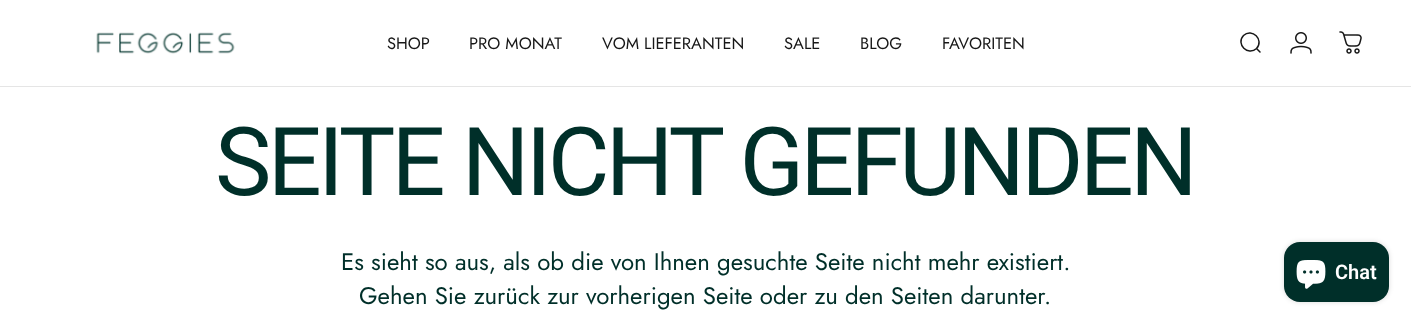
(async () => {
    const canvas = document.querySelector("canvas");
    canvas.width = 1411;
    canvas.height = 323;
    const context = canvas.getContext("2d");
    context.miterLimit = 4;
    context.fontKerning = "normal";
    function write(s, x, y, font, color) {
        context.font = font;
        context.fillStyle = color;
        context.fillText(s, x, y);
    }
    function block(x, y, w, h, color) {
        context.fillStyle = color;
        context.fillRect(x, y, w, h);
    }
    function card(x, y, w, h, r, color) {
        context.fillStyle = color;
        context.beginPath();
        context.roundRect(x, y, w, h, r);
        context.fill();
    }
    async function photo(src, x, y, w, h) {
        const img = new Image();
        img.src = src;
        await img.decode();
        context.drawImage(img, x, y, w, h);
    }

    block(0, 0, 1411, 323, "rgb(255, 255, 255)");
    await photo("media/1.png", 96, 32, 139, 22);
    write("SHOP", 387, 49, "16.5px Jost", "rgb(23, 23, 23)");
    write("PRO MONAT", 469, 49, "16.5px Jost", "rgb(23, 23, 23)");
    write("VOM LIEFERANTEN", 602, 49, "16.5px Jost", "rgb(23, 23, 23)");
    write("SALE", 784, 49, "16.5px Jost", "rgb(23, 23, 23)");
    write("BLOG", 860, 49, "16.5px Jost", "rgb(23, 23, 23)");
    write("FAVORITEN", 942, 49, "16.5px Jost", "rgb(23, 23, 23)");
    context.beginPath();
    context.moveTo(1260, 52);
    context.lineTo(1256.5, 48.5);
    context.moveTo(1256.5, 48.5);
    context.bezierCurveTo(1264.5, 40, 1252, 27.5, 1243.5, 35.5);
    context.bezierCurveTo(1235.5, 44, 1248, 56.5, 1256.5, 48.5);
    context.closePath();
    context.strokeStyle = "rgb(23, 23, 23)";
    context.lineWidth = 1.5;
    context.lineCap = "round";
    context.stroke();
    await photo("media/2.png", 1290, 32, 22, 22);
    await photo("media/3.png", 1339, 31, 23, 23);
    block(0, 86, 1411, 1, "rgb(229, 229, 229)");
    context.letterSpacing = "-3.75px";
    write("SEITE NICHT GEFUNDEN", 215, 195, "95px Roboto", "rgb(0, 47, 41)");
    context.letterSpacing = "0px";
    write("Es sieht so aus, als ob die von Ihnen gesuchte Seite nicht mehr existiert.", 341, 270, "24px Jost", "rgb(0, 47, 41)");
    write("Gehen Sie zurück zur vorherigen Seite oder zu den Seiten darunter.", 359, 304, "24px Jost", "rgb(0, 47, 41)");
    context.fillStyle = "rgba(0, 0, 0, 0.15)";
    context.filter = "blur(2.5px)";
    context.beginPath();
    context.roundRect(1284, 242, 105, 60, 16);
    context.fill();
    context.filter = "none";
    card(1284, 242, 105, 60, 16, "rgb(0, 47, 41)");
    await photo("media/4.png", 1296, 260, 30, 29);
    write("Chat", 1335, 279, "600 20px Roboto", "rgb(255, 255, 255)");
})();
